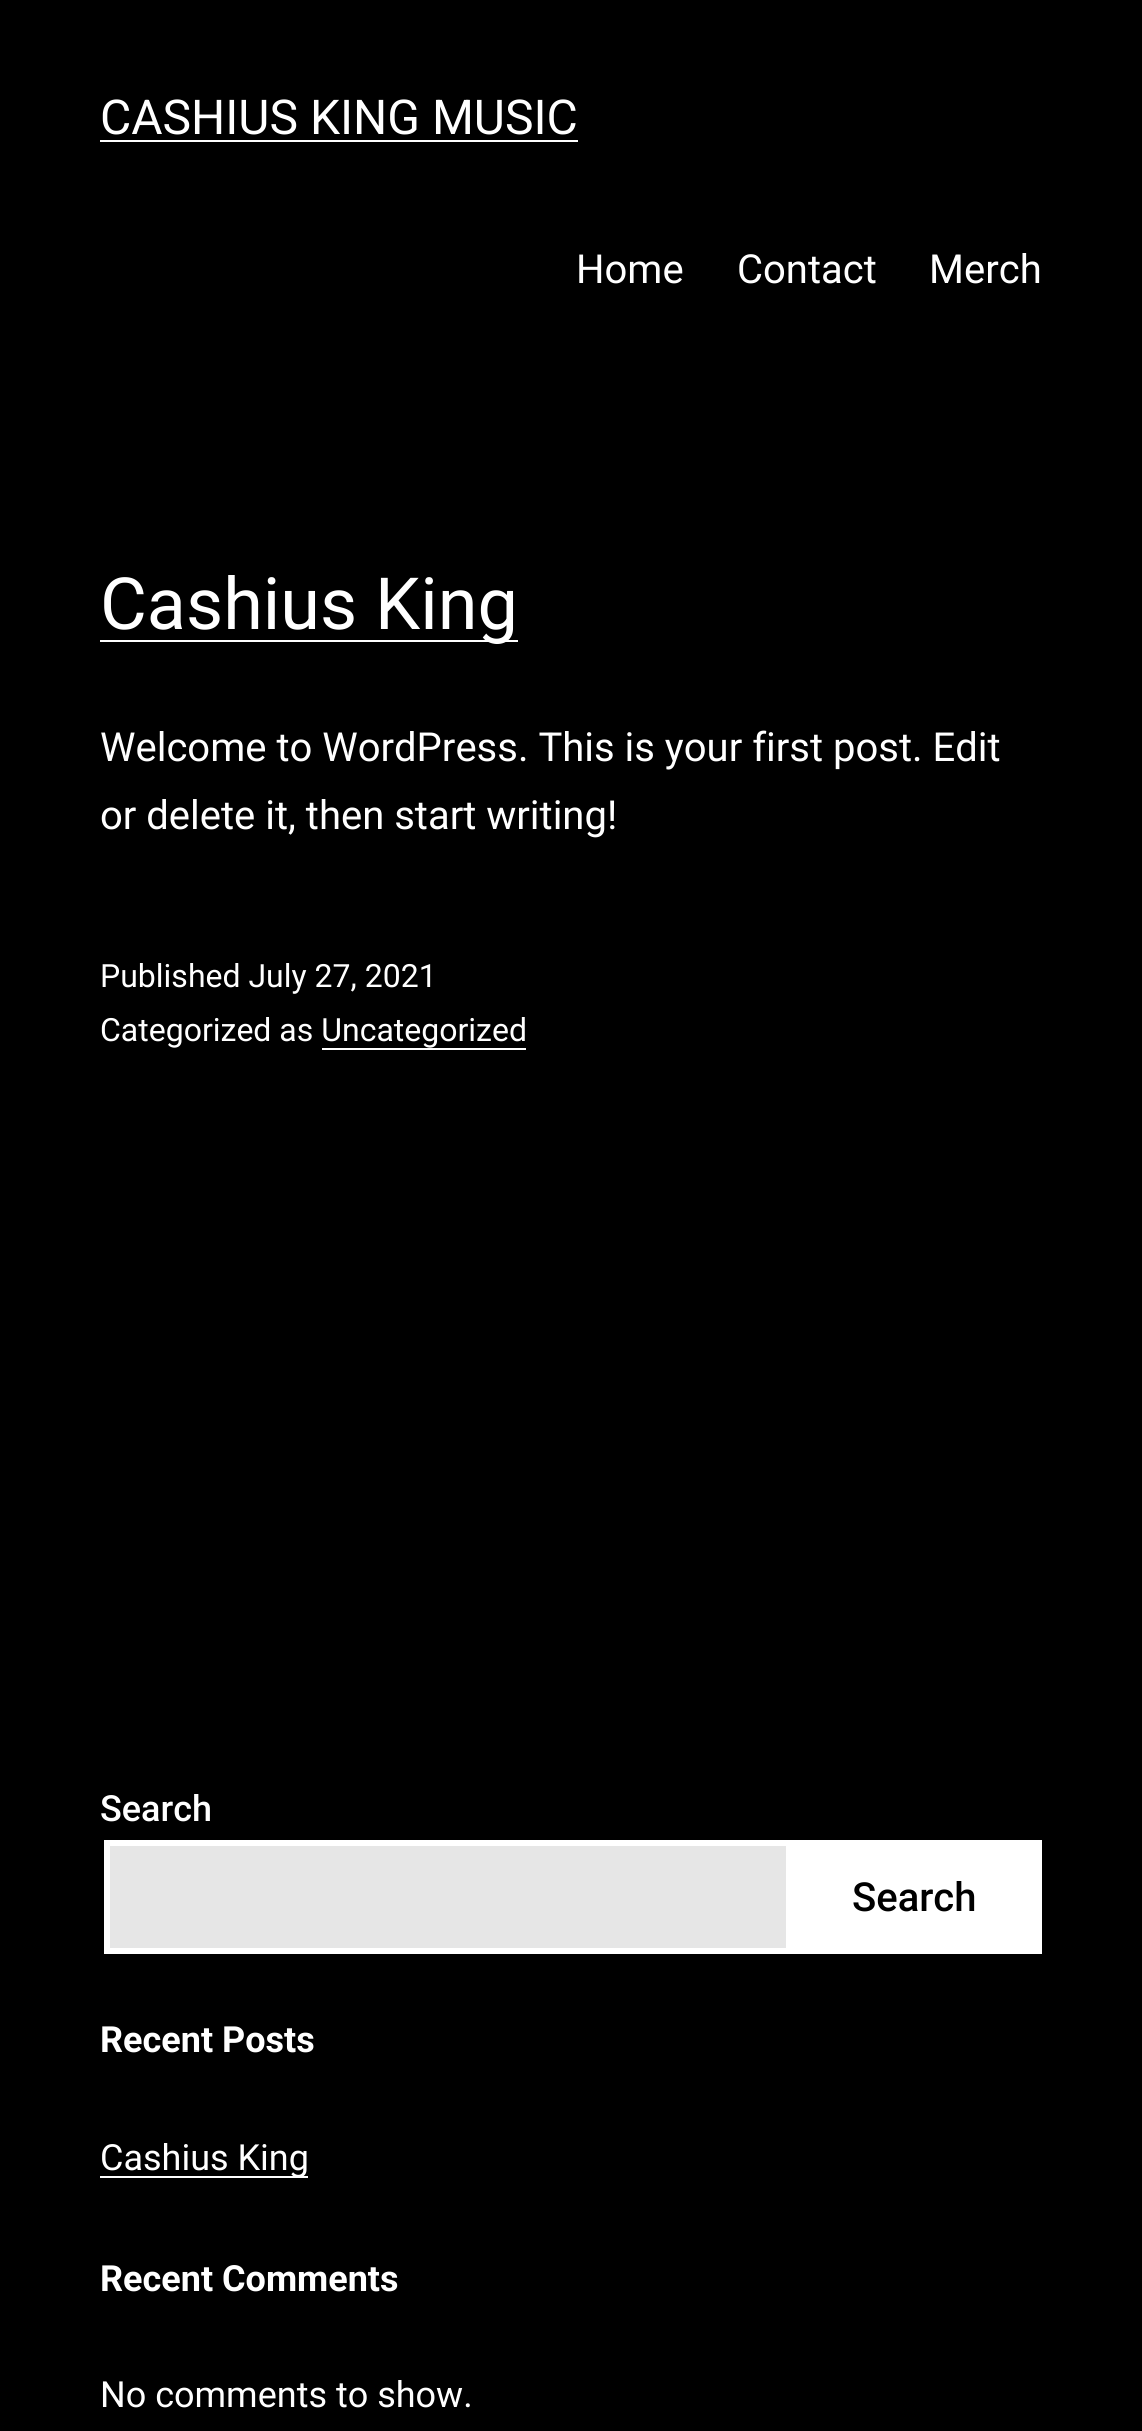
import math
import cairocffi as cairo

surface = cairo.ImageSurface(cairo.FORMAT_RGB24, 1142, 2431)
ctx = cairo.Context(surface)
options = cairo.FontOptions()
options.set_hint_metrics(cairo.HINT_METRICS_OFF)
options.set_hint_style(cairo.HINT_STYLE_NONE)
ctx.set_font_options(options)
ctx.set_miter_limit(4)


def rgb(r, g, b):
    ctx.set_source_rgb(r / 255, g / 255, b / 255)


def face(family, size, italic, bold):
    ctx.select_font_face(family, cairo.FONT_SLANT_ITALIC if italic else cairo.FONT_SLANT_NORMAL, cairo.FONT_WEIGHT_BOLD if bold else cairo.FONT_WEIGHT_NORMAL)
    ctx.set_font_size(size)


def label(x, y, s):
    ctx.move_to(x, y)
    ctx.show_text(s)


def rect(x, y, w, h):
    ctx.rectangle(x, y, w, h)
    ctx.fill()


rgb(0, 0, 0)
ctx.paint()
face('Roboto', 48, 0, 0)
rgb(255, 255, 255)
label(100, 134, 'CASHIUS KING MUSIC')
rect(100, 140, 478, 2)
face('Roboto', 40, 0, 0)
label(576, 283, 'Home')
label(737, 283, 'Contact')
label(929, 283, 'Merch')
rect(100, 640, 418, 2)
face('Roboto', 72, 0, 0)
label(100, 629, 'Cashius King')
face('Roboto', 40, 0, 0)
label(100, 761, 'Welcome to WordPress. This is your first post. Edit')
label(100, 829, 'or delete it, then start writing!')
face('Roboto', 32, 0, 0)
label(100, 987, 'Published July 27, 2021')
label(100, 1041, 'Categorized as Uncategorized')
rect(322, 1048, 204, 2)
face('Roboto Medium', 36, 0, 0)
label(100, 1821, 'Search')
rgb(230, 230, 230)
ctx.rectangle(107, 1843, 682, 108)
ctx.fill_preserve()
rgb(255, 255, 255)
ctx.set_line_width(6)
ctx.stroke()
rect(792, 1840, 250, 114)
face('Roboto Medium', 40, 0, 0)
rgb(0, 0, 0)
label(852, 1911, 'Search')
face('Roboto', 36, 0, 1)
rgb(255, 255, 255)
label(100, 2052, 'Recent Posts')
rect(100, 2176, 208, 2)
face('Roboto', 36, 0, 0)
label(100, 2170, 'Cashius King')
face('Roboto', 36, 0, 1)
label(100, 2291, 'Recent Comments')
face('Roboto', 36, 0, 0)
label(100, 2407, 'No comments to show.')
surface.write_to_png('render.png')
